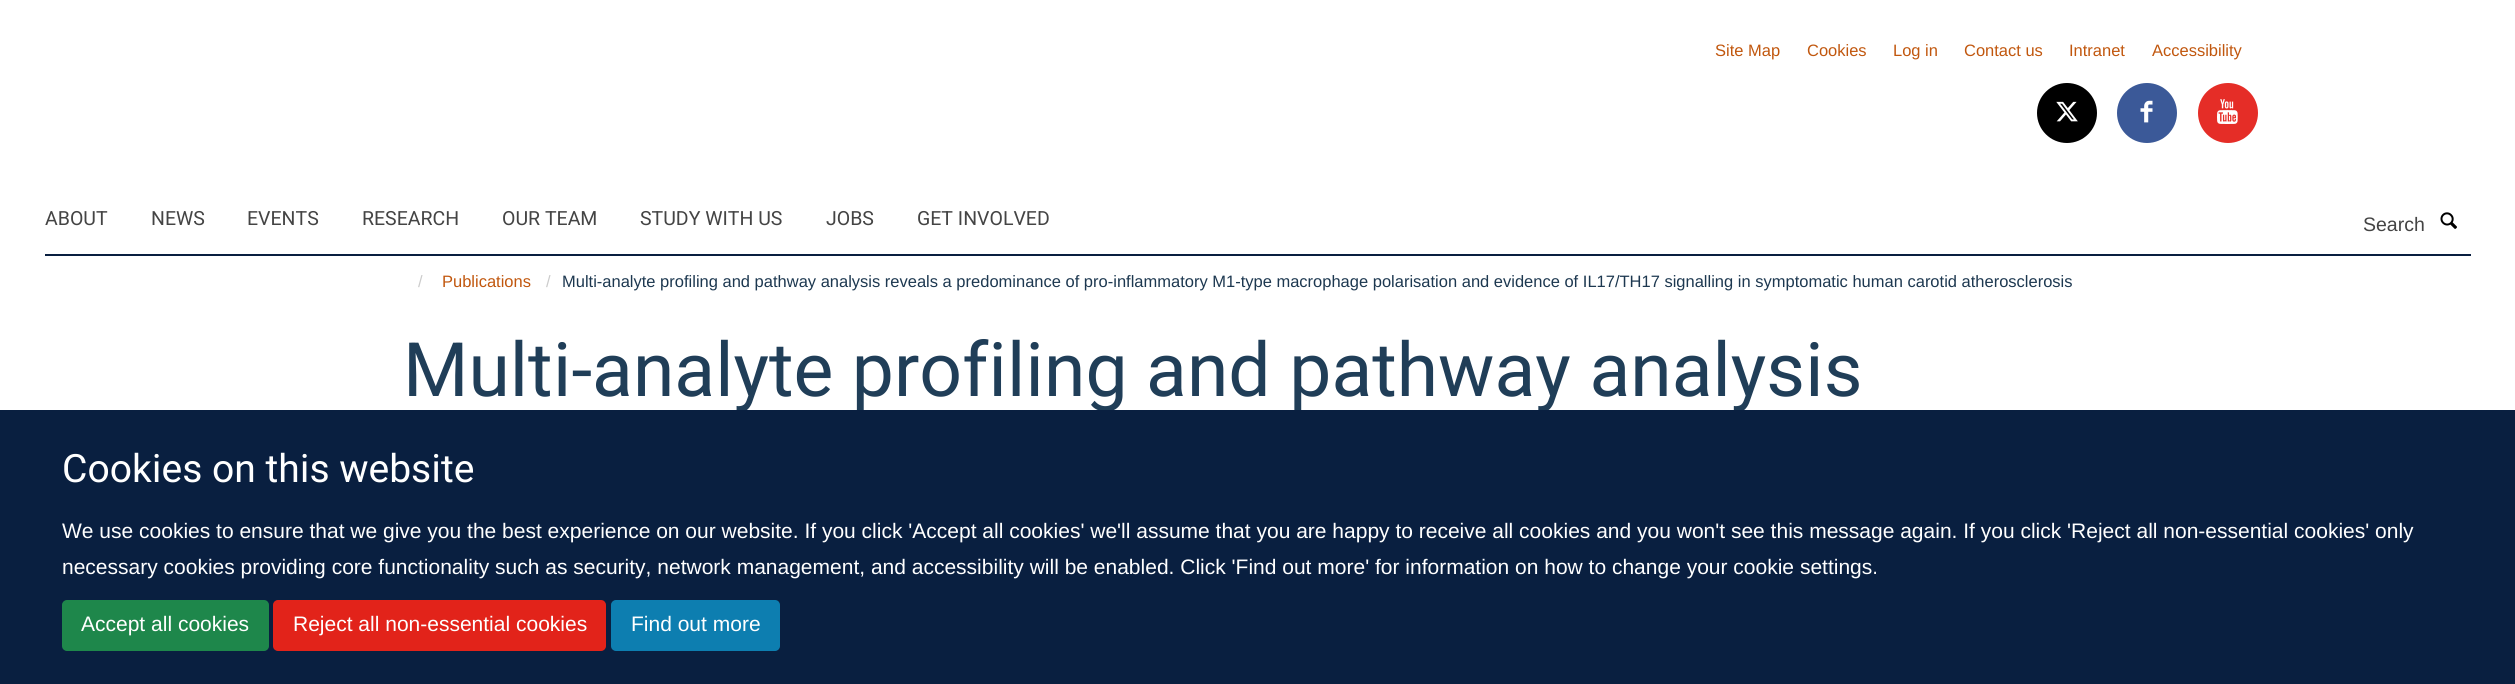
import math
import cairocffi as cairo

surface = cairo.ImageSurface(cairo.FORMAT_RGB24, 2515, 684)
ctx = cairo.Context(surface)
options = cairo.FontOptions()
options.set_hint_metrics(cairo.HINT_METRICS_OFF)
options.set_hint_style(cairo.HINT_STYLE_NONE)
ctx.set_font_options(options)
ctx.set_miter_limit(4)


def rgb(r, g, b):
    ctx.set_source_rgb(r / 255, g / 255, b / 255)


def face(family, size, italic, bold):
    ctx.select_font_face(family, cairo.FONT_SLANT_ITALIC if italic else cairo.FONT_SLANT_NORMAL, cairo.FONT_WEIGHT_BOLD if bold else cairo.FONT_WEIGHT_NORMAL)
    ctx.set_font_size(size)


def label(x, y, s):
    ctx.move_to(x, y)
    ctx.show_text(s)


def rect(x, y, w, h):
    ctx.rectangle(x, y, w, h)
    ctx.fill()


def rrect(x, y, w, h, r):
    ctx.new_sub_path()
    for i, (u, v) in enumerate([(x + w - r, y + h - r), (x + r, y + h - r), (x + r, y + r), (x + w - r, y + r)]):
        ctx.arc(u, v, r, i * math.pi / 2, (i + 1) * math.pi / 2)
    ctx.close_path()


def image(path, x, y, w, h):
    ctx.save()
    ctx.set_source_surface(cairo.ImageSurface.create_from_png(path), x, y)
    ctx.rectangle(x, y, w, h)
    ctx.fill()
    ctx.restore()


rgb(255, 255, 255)
ctx.paint()
face('Liberation Sans', 16.5, 0, 0)
rgb(193, 87, 14)
label(1715, 56, 'Site Map')
label(1807, 56, 'Cookies')
label(1893, 56, 'Log in')
label(1964, 56, 'Contact us')
label(2069, 56, 'Intranet')
label(2152, 56, 'Accessibility')
rgb(0, 0, 0)
ctx.new_path()
ctx.arc(2067, 113, 30, 0, 2 * math.pi)
ctx.fill()
image('image0.png', 2056, 101, 22, 21)
rgb(59, 89, 152)
ctx.arc(2147, 113, 30, 0, 2 * math.pi)
ctx.fill()
image('image1.png', 2140, 100, 13, 23)
rgb(229, 45, 39)
ctx.arc(2228, 113, 30, 0, 2 * math.pi)
ctx.fill()
image('image2.png', 2217, 99, 21, 25)
rgb(9, 31, 64)
rect(45, 254, 2426, 2)
face('Heebo', 19.5, 0, 0)
rgb(68, 68, 68)
label(45, 225, 'ABOUT')
label(151, 225, 'NEWS')
label(247, 225, 'EVENTS')
label(362, 225, 'RESEARCH')
label(502, 225, 'OUR TEAM')
label(640, 225, 'STUDY WITH US')
label(826, 225, 'JOBS')
label(917, 225, 'GET INVOLVED')
face('Liberation Sans', 19.5, 0, 0)
label(2363, 231, 'Search')
image('image3.png', 2440, 212, 17, 17)
face('Liberation Sans', 16.5, 0, 0)
rgb(204, 204, 204)
label(418, 287, '/')
rgb(193, 87, 14)
label(442, 287, 'Publications')
rgb(204, 204, 204)
label(546, 287, '/')
rgb(29, 56, 80)
label(562, 287, 'Multi-analyte profiling and pathway analysis reveals a predominance of pro-inflammatory M1-type macrophage polarisation and evidence of IL17/TH17 signalling in symptomatic human carotid atherosclerosis')
face('Heebo', 75, 0, 0)
rgb(32, 62, 88)
label(403, 396, 'Multi-analyte profiling and pathway analysis')
rgb(9, 31, 64)
rect(0, 410, 2515, 274)
face('Heebo', 39, 0, 0)
rgb(255, 255, 255)
label(62, 482, 'Cookies on this website')
face('Liberation Sans', 21, 0, 0)
label(62, 538, 'We use cookies to ensure that we give you the best experience on our website. If you click \'Accept all cookies\' we\'ll assume that you are happy to receive all cookies and you won\'t see this message again. If you click \'Reject all non-essential cookies\' only')
label(62, 574, 'necessary cookies providing core functionality such as security, network management, and accessibility will be enabled. Click \'Find out more\' for information on how to change your cookie settings.')
rgb(30, 135, 75)
rrect(63, 601, 205, 49, 4)
ctx.fill_preserve()
ctx.stroke()
rgb(255, 255, 255)
label(81, 631, 'Accept all cookies')
rgb(226, 35, 26)
rrect(274, 601, 331, 49, 4)
ctx.fill_preserve()
ctx.stroke()
rgb(255, 255, 255)
label(293, 631, 'Reject all non-essential cookies')
rgb(13, 126, 176)
rrect(612, 601, 167, 49, 4)
ctx.fill_preserve()
ctx.stroke()
rgb(255, 255, 255)
label(631, 631, 'Find out more')
surface.write_to_png('render.png')
